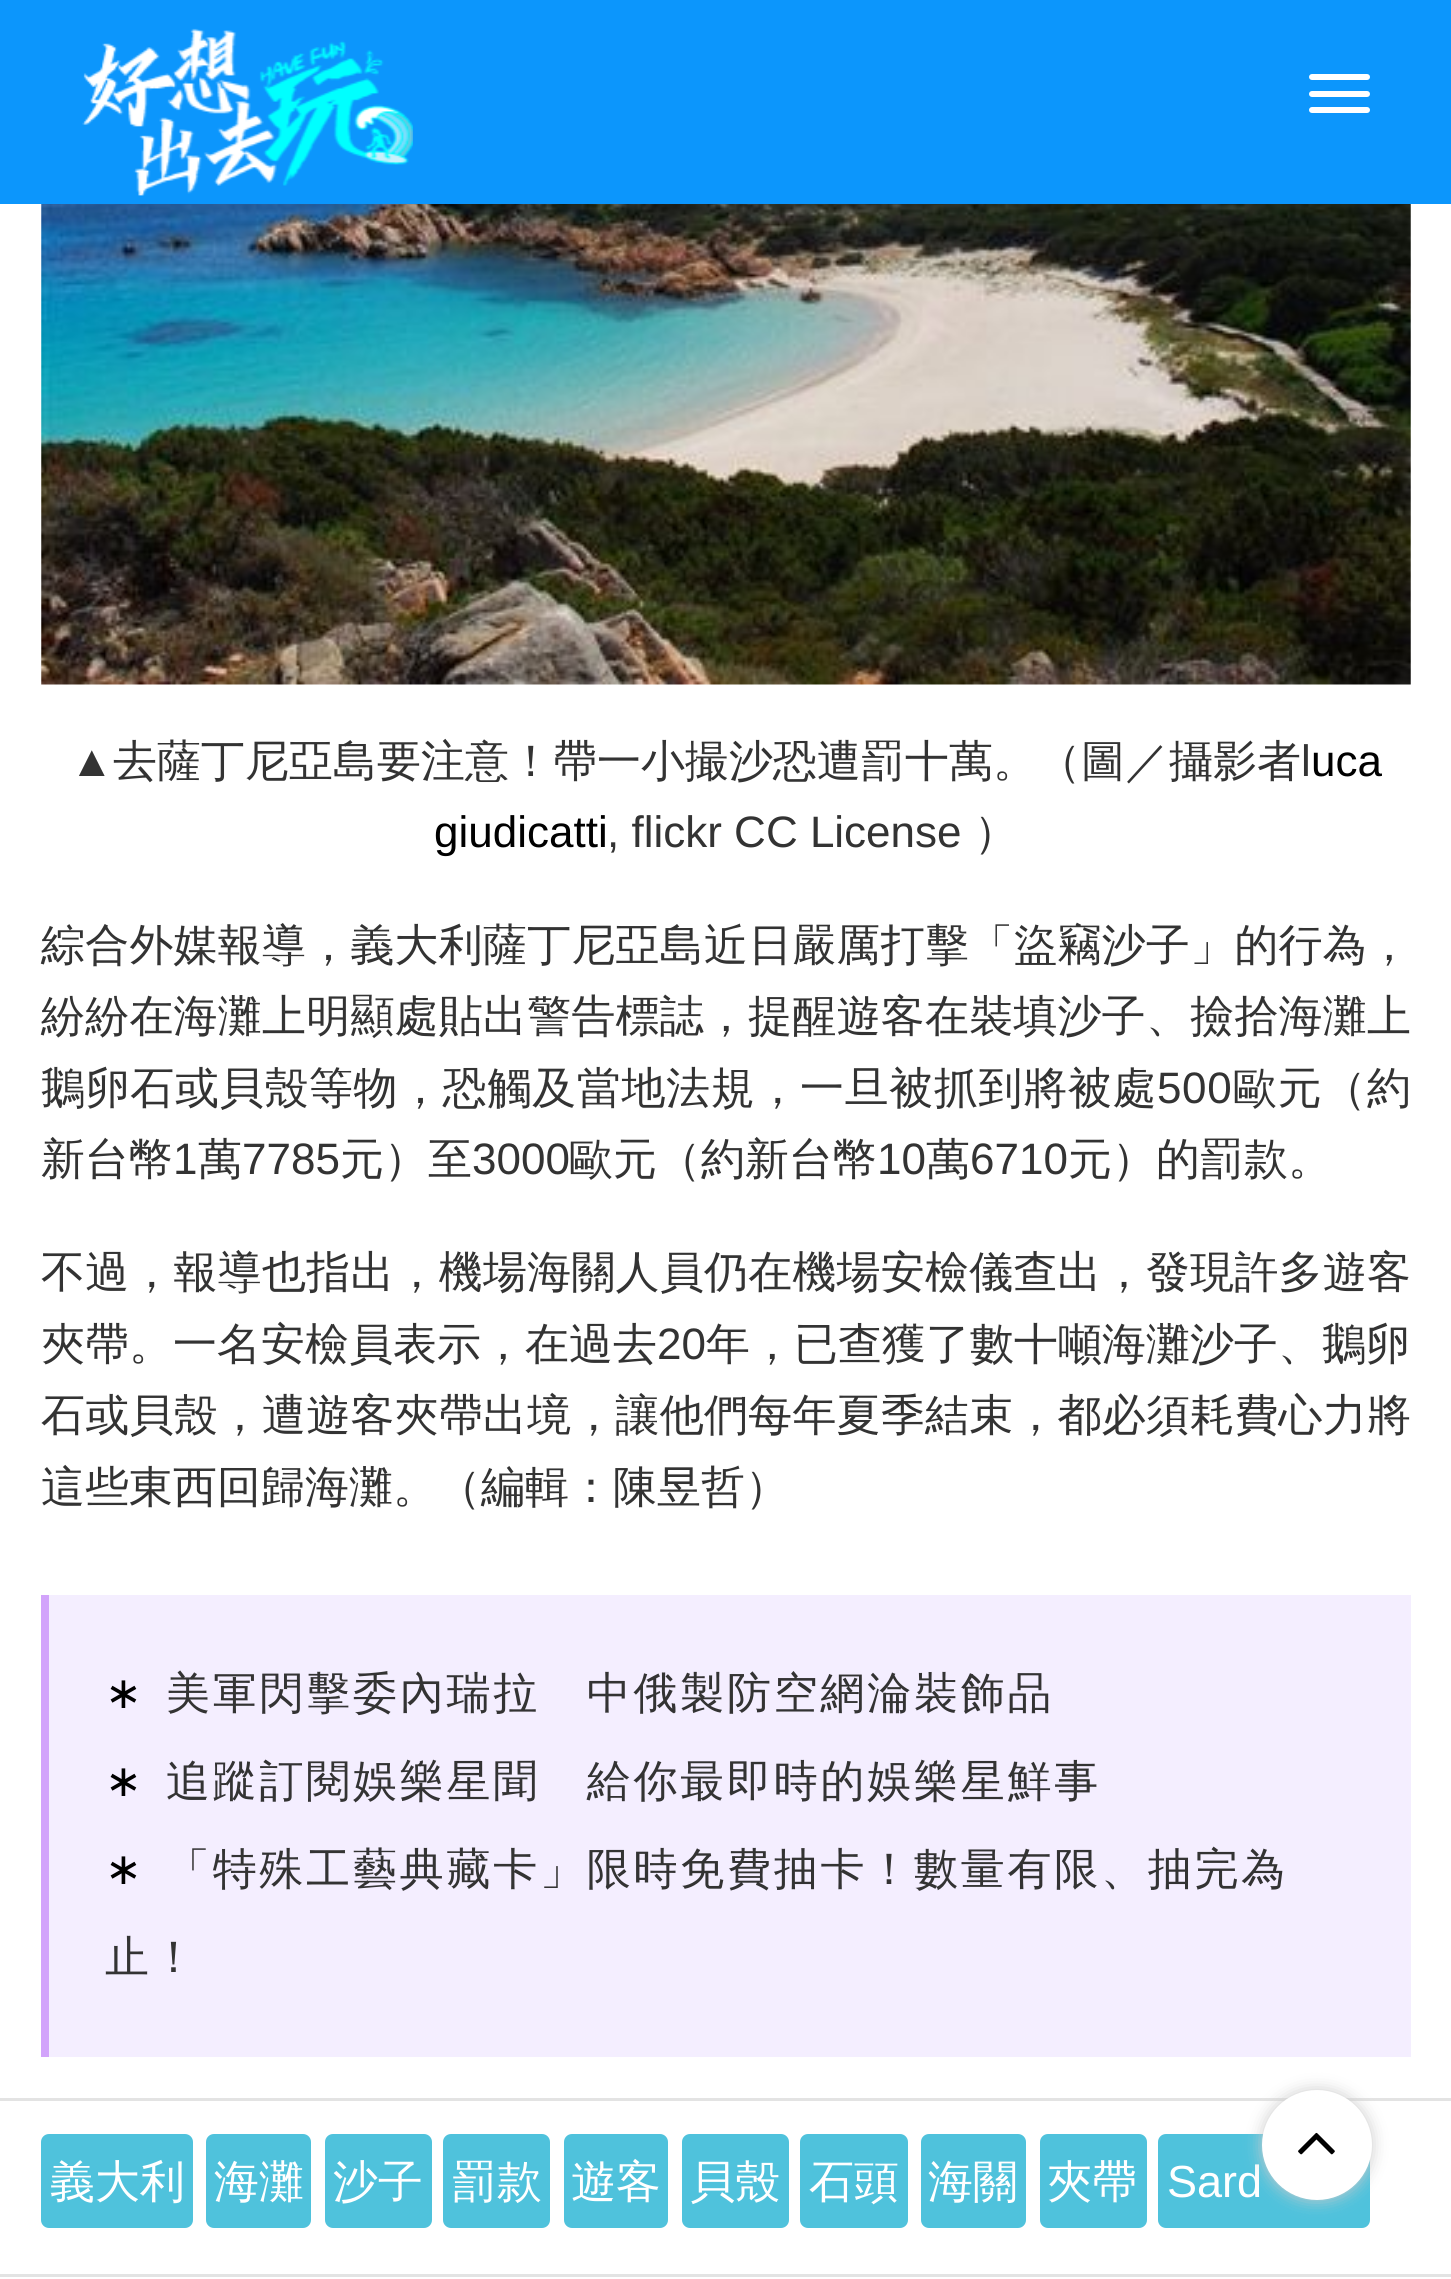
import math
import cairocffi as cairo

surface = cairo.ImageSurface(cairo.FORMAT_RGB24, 1451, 2279)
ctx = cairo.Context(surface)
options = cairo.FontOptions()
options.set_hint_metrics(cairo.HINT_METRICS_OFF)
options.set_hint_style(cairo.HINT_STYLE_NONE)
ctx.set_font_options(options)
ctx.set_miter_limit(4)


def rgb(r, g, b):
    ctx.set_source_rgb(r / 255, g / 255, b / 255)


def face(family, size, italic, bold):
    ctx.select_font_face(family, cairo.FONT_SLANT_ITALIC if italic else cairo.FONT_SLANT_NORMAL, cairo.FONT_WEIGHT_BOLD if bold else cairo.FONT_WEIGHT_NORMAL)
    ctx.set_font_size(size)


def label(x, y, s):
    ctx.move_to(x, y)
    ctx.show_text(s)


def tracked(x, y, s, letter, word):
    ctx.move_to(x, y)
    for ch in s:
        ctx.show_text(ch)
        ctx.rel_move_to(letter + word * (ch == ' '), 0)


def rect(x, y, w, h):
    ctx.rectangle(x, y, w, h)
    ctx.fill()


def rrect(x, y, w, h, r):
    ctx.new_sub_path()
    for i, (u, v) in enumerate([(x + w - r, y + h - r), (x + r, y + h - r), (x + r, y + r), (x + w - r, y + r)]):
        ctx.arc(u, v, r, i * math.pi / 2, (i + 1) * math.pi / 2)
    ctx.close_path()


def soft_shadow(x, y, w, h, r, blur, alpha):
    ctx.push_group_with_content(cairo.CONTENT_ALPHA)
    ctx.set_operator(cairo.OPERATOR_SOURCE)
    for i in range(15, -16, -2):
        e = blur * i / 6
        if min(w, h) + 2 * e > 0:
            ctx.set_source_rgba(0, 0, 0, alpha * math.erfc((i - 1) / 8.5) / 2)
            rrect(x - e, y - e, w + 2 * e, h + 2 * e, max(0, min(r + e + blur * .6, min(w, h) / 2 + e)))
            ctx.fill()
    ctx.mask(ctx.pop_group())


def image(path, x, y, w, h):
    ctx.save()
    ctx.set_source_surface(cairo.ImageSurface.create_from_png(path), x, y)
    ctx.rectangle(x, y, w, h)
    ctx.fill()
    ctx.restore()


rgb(255, 255, 255)
ctx.paint()
rgb(12, 150, 252)
rect(0, 0, 1451, 204)
image('image0.png', 82, 28, 331, 168)
rgb(255, 255, 255)
rrect(1309, 74, 61, 6, 3)
ctx.fill()
rrect(1309, 91, 61, 6, 3)
ctx.fill()
rrect(1309, 107, 61, 6, 3)
ctx.fill()
image('image1.png', 41, 204, 1370, 481)
face('Liberation Sans', 44, 0, 0)
rgb(51, 51, 51)
label(70, 776, '▲')
face('WenQuanYi Zen Hei Medium', 44, 0, 0)
label(113, 776, '去薩丁尼亞島要注意！帶一小撮沙恐遭罰十萬。（圖／攝影者')
face('Liberation Sans', 44, 0, 0)
label(1301, 776, 'l')
rgb(0, 0, 0)
label(1311, 776, 'uca')
label(434, 847, 'giudicatti')
rgb(51, 51, 51)
label(607, 847, ', flickr CC License')
face('WenQuanYi Zen Hei Medium', 44, 0, 0)
label(974, 847, '）')
tracked(41, 960, '綜合外媒報導，義大利薩丁尼亞島近日嚴厲打擊「盜竊沙子」的行為，', 0.2, 0)
tracked(41, 1031, '紛紛在海灘上明顯處貼出警告標誌，提醒遊客在裝填沙子、撿拾海灘上', 0.2, 0)
tracked(41, 1103, '鵝卵石或貝殼等物，恐觸及當地法規，一旦被抓到將被處', 0.65, 0)
face('Liberation Sans', 44, 0, 0)
tracked(1157, 1103, '500', 0.65, 0)
face('WenQuanYi Zen Hei Medium', 44, 0, 0)
tracked(1233, 1103, '歐元（約', 0.65, 0)
label(41, 1174, '新台幣')
face('Liberation Sans', 44, 0, 0)
label(173, 1174, '1')
face('WenQuanYi Zen Hei Medium', 44, 0, 0)
label(198, 1174, '萬')
face('Liberation Sans', 44, 0, 0)
label(242, 1174, '7785')
face('WenQuanYi Zen Hei Medium', 44, 0, 0)
label(340, 1174, '元）至')
face('Liberation Sans', 44, 0, 0)
label(472, 1174, '3000')
face('WenQuanYi Zen Hei Medium', 44, 0, 0)
label(569, 1174, '歐元（約新台幣')
face('Liberation Sans', 44, 0, 0)
label(877, 1174, '10')
face('WenQuanYi Zen Hei Medium', 44, 0, 0)
label(926, 1174, '萬')
face('Liberation Sans', 44, 0, 0)
label(970, 1174, '6710')
face('WenQuanYi Zen Hei Medium', 44, 0, 0)
label(1068, 1174, '元）的罰款。')
tracked(41, 1287, '不過，報導也指出，機場海關人員仍在機場安檢儀查出，發現許多遊客', 0.2, 0)
label(41, 1359, '夾帶。一名安檢員表示，在過去')
face('Liberation Sans', 44, 0, 0)
label(657, 1359, '20')
face('WenQuanYi Zen Hei Medium', 44, 0, 0)
label(706, 1359, '年，已查獲了數十噸海灘沙子、鵝卵')
tracked(41, 1430, '石或貝殼，遭遊客夾帶出境，讓他們每年夏季結束，都必須耗費心力將', 0.2, 0)
label(41, 1502, '這些東西回歸海灘。（編輯：陳昱哲）')
rgb(244, 238, 255)
rect(49, 1595, 1362, 462)
rgb(210, 163, 251)
rect(41, 1595, 8, 462)
face('DejaVu Sans', 44, 0, 0)
rgb(0, 0, 0)
tracked(105, 1708, '∗', 2.75, 0)
face('WenQuanYi Zen Hei Medium', 44, 0, 0)
rgb(51, 51, 51)
tracked(166, 1708, '美軍閃擊委內瑞拉　中俄製防空網淪裝飾品', 2.75, 0)
face('DejaVu Sans', 44, 0, 0)
rgb(0, 0, 0)
tracked(105, 1796, '∗', 2.75, 0)
face('WenQuanYi Zen Hei Medium', 44, 0, 0)
rgb(51, 51, 51)
tracked(166, 1796, '追蹤訂閱娛樂星聞　給你最即時的娛樂星鮮事', 2.75, 0)
face('DejaVu Sans', 44, 0, 0)
rgb(0, 0, 0)
tracked(105, 1884, '∗', 2.75, 0)
face('WenQuanYi Zen Hei Medium', 44, 0, 0)
rgb(51, 51, 51)
tracked(166, 1884, '「特殊工藝典藏卡」限時免費抽卡！數量有限、抽完為', 2.75, 0)
tracked(105, 1972, '止！', 2.75, 0)
rgb(227, 227, 227)
rect(0, 2098, 1451, 3)
rect(0, 2274, 1451, 3)
rgb(79, 194, 220)
rrect(41, 2134, 152, 94, 8)
ctx.fill()
face('WenQuanYi Zen Hei Medium', 45, 0, 0)
rgb(255, 255, 255)
label(50, 2197, '義大利')
rgb(79, 194, 220)
rrect(206, 2134, 105, 94, 8)
ctx.fill()
rgb(255, 255, 255)
label(214, 2197, '海灘')
rgb(79, 194, 220)
rrect(325, 2134, 107, 94, 8)
ctx.fill()
rgb(255, 255, 255)
label(333, 2197, '沙子')
rgb(79, 194, 220)
rrect(443, 2134, 107, 94, 8)
ctx.fill()
rgb(255, 255, 255)
label(452, 2197, '罰款')
rgb(79, 194, 220)
rrect(564, 2134, 104, 94, 8)
ctx.fill()
rgb(255, 255, 255)
label(571, 2197, '遊客')
rgb(79, 194, 220)
rrect(682, 2134, 107, 94, 8)
ctx.fill()
rgb(255, 255, 255)
label(690, 2197, '貝殼')
rgb(79, 194, 220)
rrect(800, 2134, 108, 94, 8)
ctx.fill()
rgb(255, 255, 255)
label(809, 2197, '石頭')
rgb(79, 194, 220)
rrect(921, 2134, 105, 94, 8)
ctx.fill()
rgb(255, 255, 255)
label(928, 2197, '海關')
rgb(79, 194, 220)
rrect(1040, 2134, 107, 94, 8)
ctx.fill()
rgb(255, 255, 255)
label(1047, 2197, '夾帶')
rgb(79, 194, 220)
rrect(1158, 2134, 212, 94, 8)
ctx.fill()
face('Liberation Sans', 45, 0, 0)
rgb(255, 255, 255)
label(1167, 2197, 'Sard')
rgb(204, 204, 204)
soft_shadow(1262, 2090, 110, 110, 55, 8, 1)
rgb(255, 255, 255)
ctx.arc(1317, 2145, 55, 0, 2 * math.pi)
ctx.fill()
image('image2.png', 1298, 2132, 37, 23)
surface.write_to_png('render.png')
